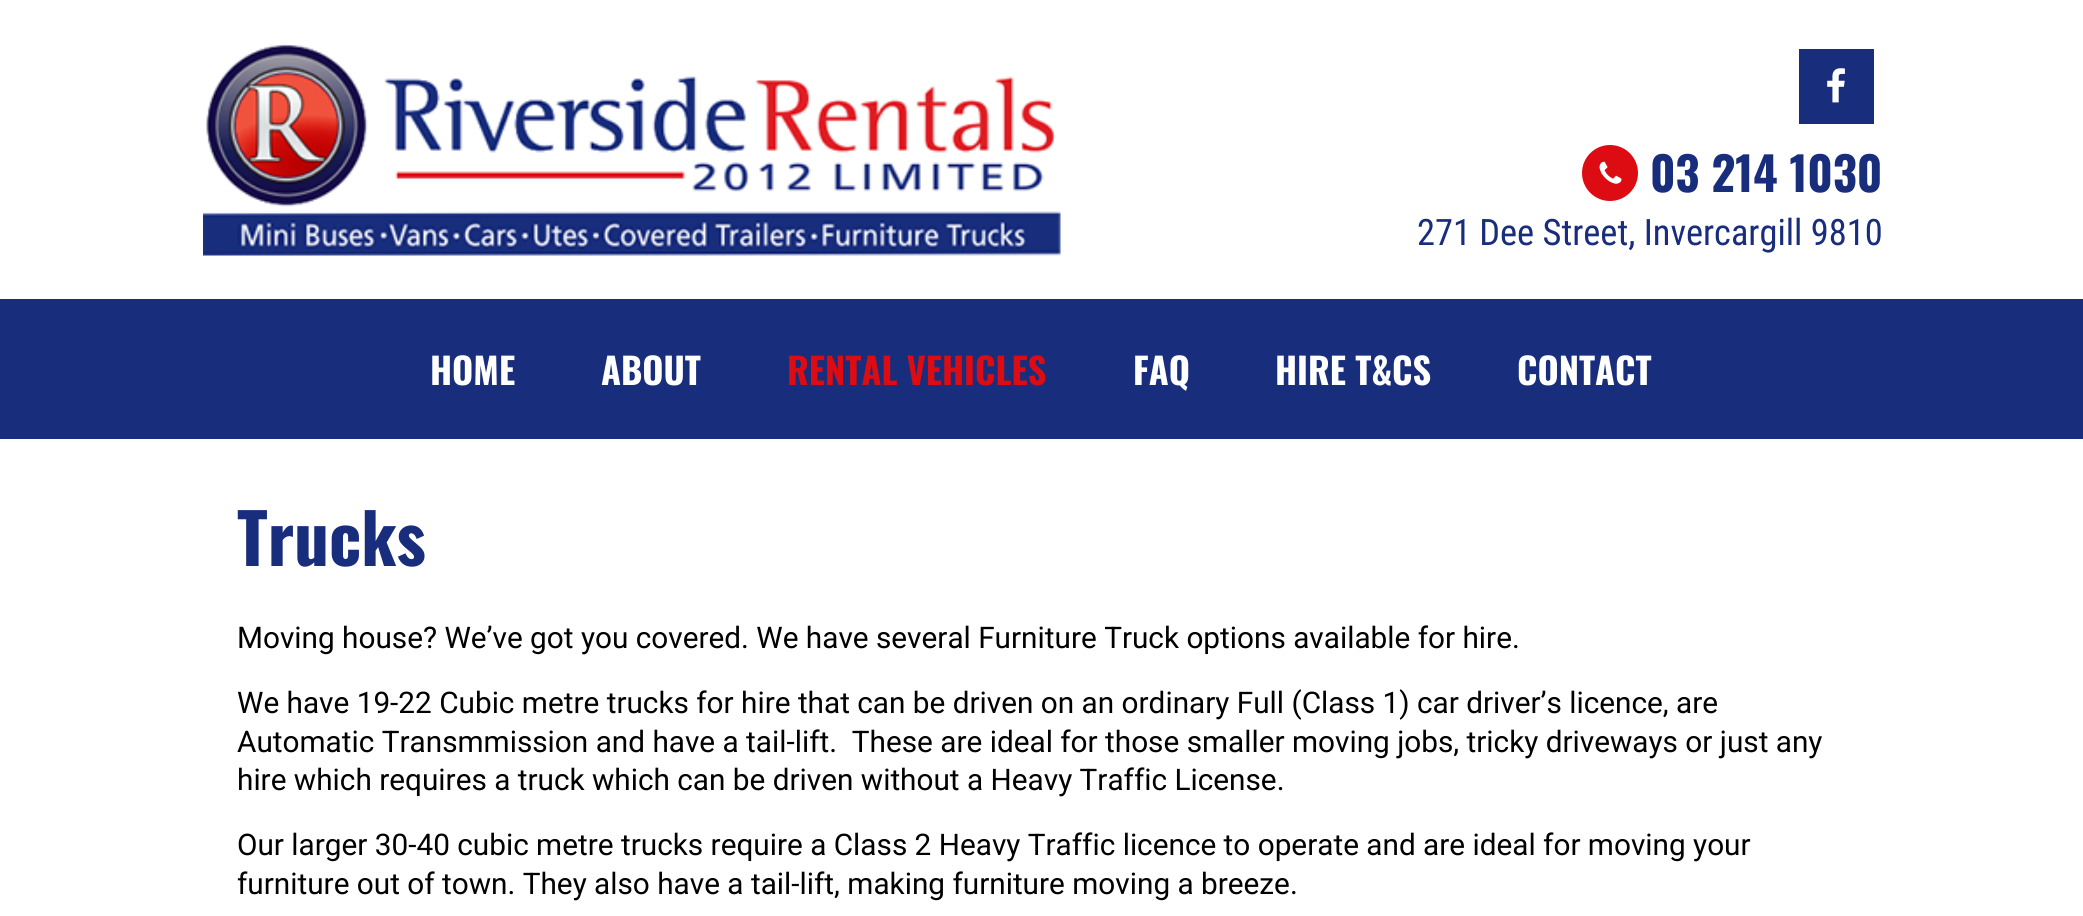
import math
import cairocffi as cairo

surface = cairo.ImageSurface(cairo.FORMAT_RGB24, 2083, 916)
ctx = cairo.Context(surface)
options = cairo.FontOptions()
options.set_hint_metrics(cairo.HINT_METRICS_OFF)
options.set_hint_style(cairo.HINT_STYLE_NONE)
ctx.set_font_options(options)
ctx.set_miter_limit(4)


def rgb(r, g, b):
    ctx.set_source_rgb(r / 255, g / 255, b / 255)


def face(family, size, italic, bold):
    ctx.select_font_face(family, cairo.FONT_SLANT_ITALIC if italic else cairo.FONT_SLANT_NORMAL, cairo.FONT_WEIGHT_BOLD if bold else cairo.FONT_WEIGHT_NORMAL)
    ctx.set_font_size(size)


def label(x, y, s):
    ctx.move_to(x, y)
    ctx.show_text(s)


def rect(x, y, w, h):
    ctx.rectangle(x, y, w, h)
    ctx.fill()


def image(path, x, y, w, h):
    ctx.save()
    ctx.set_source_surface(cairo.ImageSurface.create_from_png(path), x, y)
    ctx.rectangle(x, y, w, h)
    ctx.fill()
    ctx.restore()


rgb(255, 255, 255)
ctx.paint()
image('image0.png', 203, 44, 858, 212)
rgb(24, 45, 124)
rect(1799, 49, 75, 75)
image('image1.png', 1827, 68, 18, 35)
rgb(221, 12, 19)
ctx.arc(1610, 173, 28, 0, 2 * math.pi)
ctx.fill()
image('image2.png', 1599, 161, 23, 23)
face('Oswald', 46.5, 0, 1)
rgb(24, 45, 124)
label(1650, 192, '03 214 1030')
face('Roboto Condensed', 36.4, 0, 0)
label(1417, 245, '271 Dee Street, Invercargill 9810')
rect(0, 299, 2083, 140)
face('Oswald', 36.25, 0, 1)
rgb(255, 255, 255)
label(430, 385, 'HOME')
label(601, 385, 'ABOUT')
rgb(221, 12, 19)
label(787, 385, 'RENTAL VEHICLES')
rgb(255, 255, 255)
label(1133, 385, 'FAQ')
label(1275, 385, 'HIRE T&CS')
label(1517, 385, 'CONTACT')
face('Oswald', 69, 0, 1)
rgb(24, 45, 124)
label(237, 566, 'Trucks')
face('Roboto', 29.75, 0, 0)
rgb(0, 0, 0)
label(237, 648, 'Moving house? We’ve got you covered. We have several Furniture Truck options available for hire.')
label(237, 713, 'We have 19-22 Cubic metre trucks for hire that can be driven on an ordinary Full (Class 1) car driver’s licence, are')
label(237, 752, 'Automatic Transmmission and have a tail-lift.  These are ideal for those smaller moving jobs, tricky driveways or just any')
label(237, 790, 'hire which requires a truck which can be driven without a Heavy Traffic License.')
label(237, 855, 'Our larger 30-40 cubic metre trucks require a Class 2 Heavy Traffic licence to operate and are ideal for moving your')
label(237, 894, 'furniture out of town. They also have a tail-lift, making furniture moving a breeze.')
surface.write_to_png('render.png')
